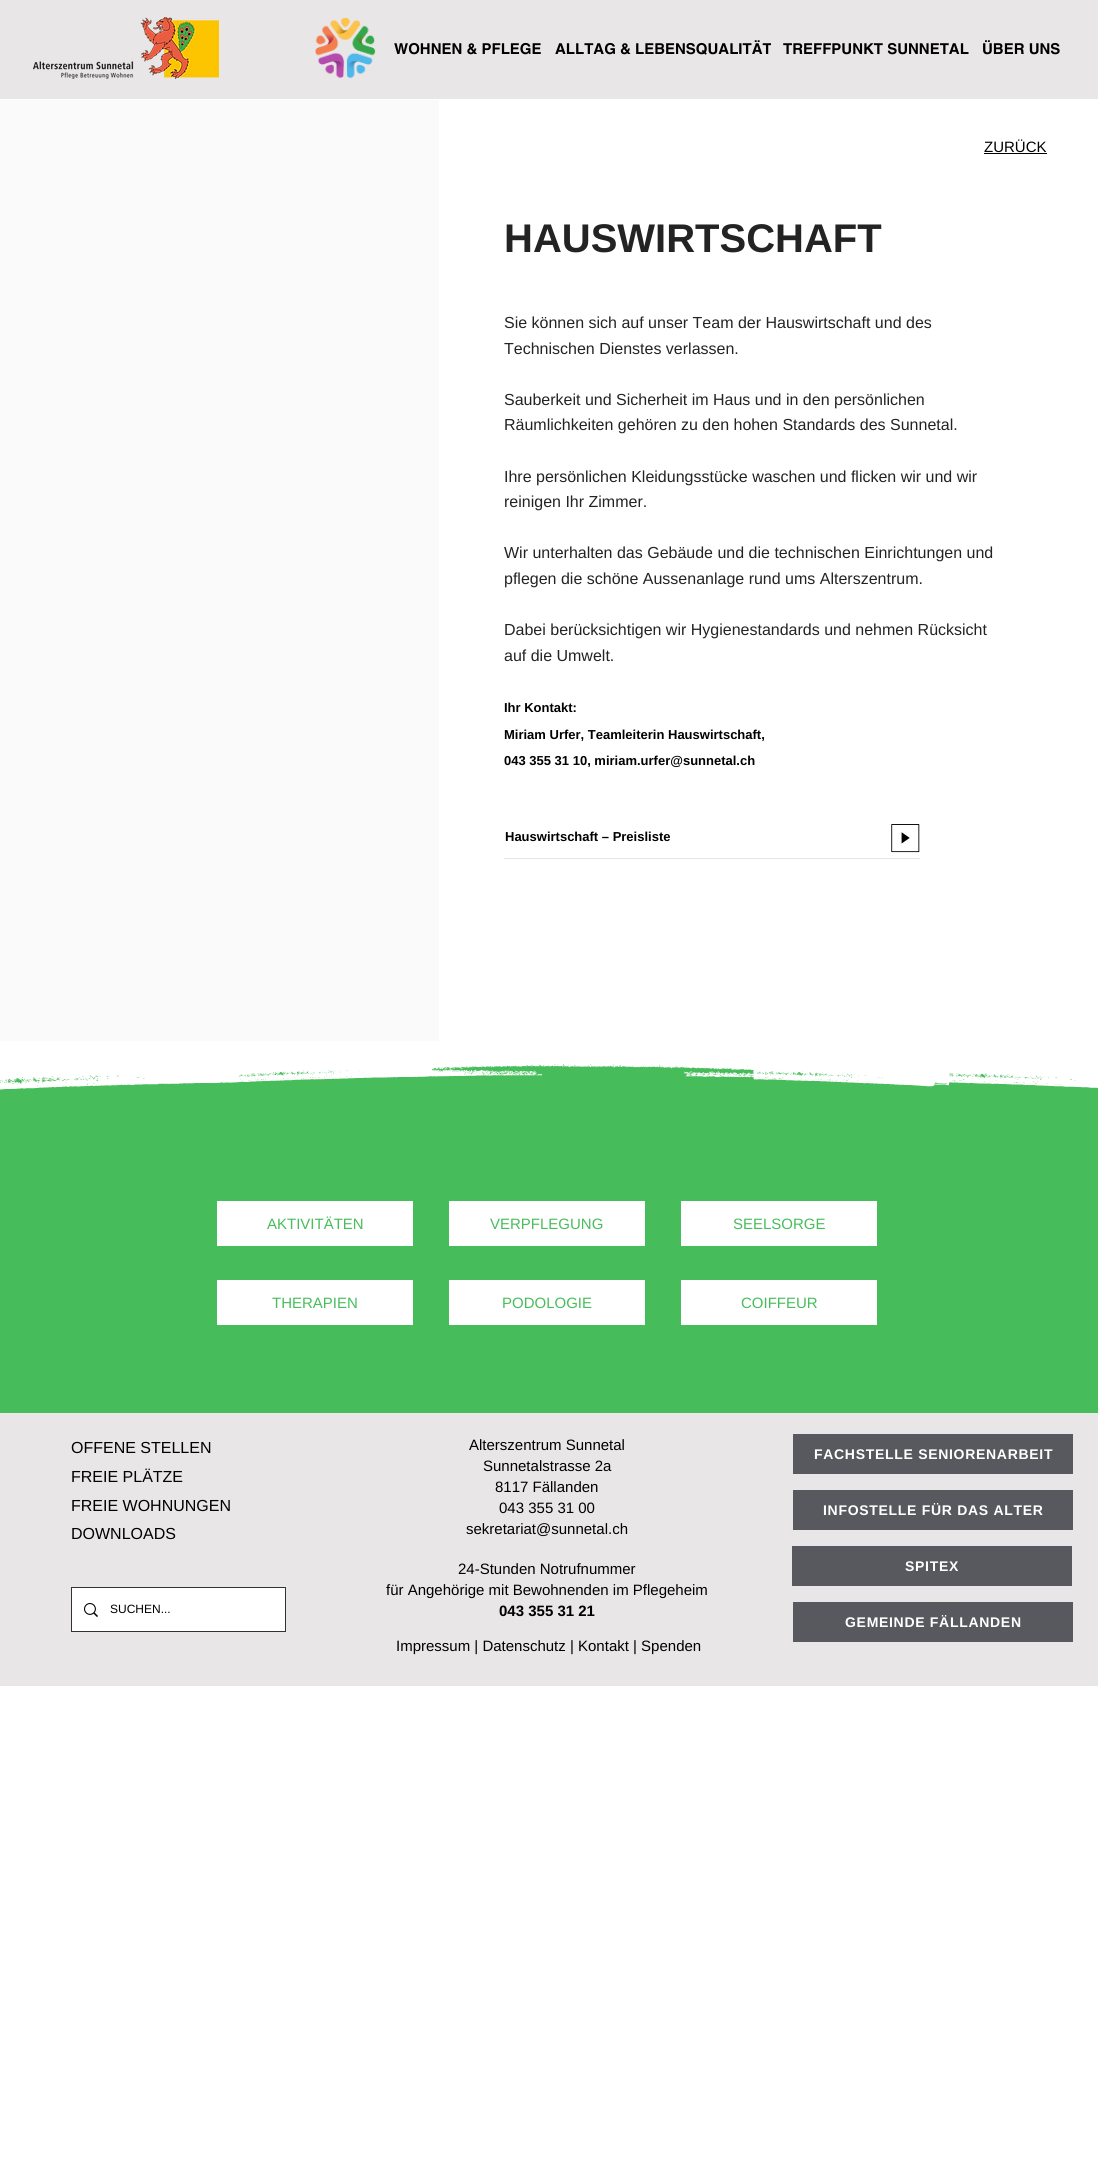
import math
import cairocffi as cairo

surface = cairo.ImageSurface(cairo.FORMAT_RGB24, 1098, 2171)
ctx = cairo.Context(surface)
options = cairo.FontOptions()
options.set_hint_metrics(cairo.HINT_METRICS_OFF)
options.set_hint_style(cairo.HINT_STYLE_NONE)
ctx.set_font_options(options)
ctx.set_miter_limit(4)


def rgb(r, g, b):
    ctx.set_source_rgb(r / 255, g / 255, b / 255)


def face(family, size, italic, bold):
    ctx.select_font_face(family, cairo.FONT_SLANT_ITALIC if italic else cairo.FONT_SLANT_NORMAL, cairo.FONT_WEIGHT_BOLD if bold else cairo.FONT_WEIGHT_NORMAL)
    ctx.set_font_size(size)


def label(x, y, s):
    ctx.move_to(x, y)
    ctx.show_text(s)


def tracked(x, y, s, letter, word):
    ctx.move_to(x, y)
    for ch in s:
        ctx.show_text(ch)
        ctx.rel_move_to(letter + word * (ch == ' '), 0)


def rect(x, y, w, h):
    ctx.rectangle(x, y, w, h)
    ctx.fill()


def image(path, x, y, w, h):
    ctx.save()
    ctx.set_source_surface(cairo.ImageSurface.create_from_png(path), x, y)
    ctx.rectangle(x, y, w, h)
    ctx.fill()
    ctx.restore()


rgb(255, 255, 255)
ctx.paint()
rgb(232, 230, 230)
rect(0, 0, 1098, 99)
image('image0.png', 33, 17, 186, 62)
image('image1.png', 315, 17, 61, 62)
face('helvetica', 15, 0, 1)
rgb(0, 0, 0)
label(394, 54, 'WOHNEN & PFLEGE')
label(555, 54, 'ALLTAG & LEBENSQUALITÄT')
label(783, 54, 'TREFFPUNKT SUNNETAL')
label(982, 54, 'ÜBER UNS')
rgb(250, 250, 250)
rect(0, 100, 439, 941)
face('Liberation Sans', 15, 0, 0)
rgb(0, 0, 0)
label(984, 152, 'ZURÜCK')
rect(984, 153, 63, 1)
face('Liberation Sans', 40, 0, 1)
rgb(36, 35, 35)
label(504, 252, 'HAUSWIRTSCHAFT')
face('Liberation Sans', 16, 0, 0)
label(504, 328, 'Sie können sich auf unser Team der Hauswirtschaft und des')
label(504, 354, 'Technischen Dienstes verlassen.')
label(504, 405, 'Sauberkeit und Sicherheit im Haus und in den persönlichen')
label(504, 430, 'Räumlichkeiten gehören zu den hohen Standards des Sunnetal.')
label(504, 482, 'Ihre persönlichen Kleidungsstücke waschen und flicken wir und wir')
label(504, 507, 'reinigen Ihr Zimmer.')
label(504, 558, 'Wir unterhalten das Gebäude und die technischen Einrichtungen und')
label(504, 584, 'pflegen die schöne Aussenanlage rund ums Alterszentrum.')
label(504, 635, 'Dabei berücksichtigen wir Hygienestandards und nehmen Rücksicht')
label(504, 661, 'auf die Umwelt.')
face('Liberation Sans', 13, 0, 1)
rgb(0, 0, 0)
label(504, 712, 'Ihr Kontakt:')
label(504, 739, 'Miriam Urfer, Teamleiterin Hauswirtschaft,')
label(504, 765, '043 355 31 10, miriam.urfer@sunnetal.ch')
label(505, 841, 'Hauswirtschaft – Preisliste')
image('image2.png', 891, 824, 29, 29)
rgb(232, 230, 230)
rect(504, 858, 416, 1)
rgb(71, 188, 91)
rect(0, 1064, 1098, 349)
image('image3.png', 0, 1042, 1098, 48)
rgb(255, 255, 255)
rect(217, 1201, 196, 45)
face('Liberation Sans', 15, 0, 0)
rgb(71, 189, 91)
label(267, 1229, 'AKTIVITÄTEN')
rgb(255, 255, 255)
rect(449, 1201, 196, 45)
rgb(71, 189, 91)
label(490, 1229, 'VERPFLEGUNG')
rgb(255, 255, 255)
rect(681, 1201, 196, 45)
rgb(71, 189, 91)
label(733, 1229, 'SEELSORGE')
rgb(255, 255, 255)
rect(217, 1280, 196, 45)
rgb(71, 189, 91)
label(272, 1308, 'THERAPIEN')
rgb(255, 255, 255)
rect(449, 1280, 196, 45)
rgb(71, 189, 91)
label(502, 1308, 'PODOLOGIE')
rgb(255, 255, 255)
rect(681, 1280, 196, 45)
rgb(71, 189, 91)
label(741, 1308, 'COIFFEUR')
rgb(232, 230, 230)
rect(0, 1413, 1098, 273)
face('Liberation Sans', 16, 0, 0)
rgb(0, 0, 0)
label(71, 1453, 'OFFENE STELLEN')
label(71, 1482, 'FREIE PLÄTZE')
label(71, 1511, 'FREIE WOHNUNGEN')
label(71, 1539, 'DOWNLOADS')
ctx.rectangle(71.5, 1587.5, 214, 44)
rgb(50, 50, 50)
ctx.set_line_width(1)
ctx.stroke()
rgb(255, 255, 255)
rect(72, 1588, 213, 43)
image('image4.png', 84, 1603, 14, 14)
face('Liberation Sans', 12, 0, 0)
rgb(0, 0, 0)
label(110, 1613, 'SUCHEN...')
face('Liberation Sans', 15, 0, 0)
label(469, 1450, 'Alterszentrum Sunnetal')
label(483, 1471, 'Sunnetalstrasse 2a')
label(495, 1492, '8117 Fällanden')
label(499, 1513, '043 355 31 00')
label(466, 1534, 'sekretariat@sunnetal.ch')
label(458, 1574, '24-Stunden Notrufnummer')
label(386, 1595, 'für Angehörige mit Bewohnenden im Pflegeheim')
face('Liberation Sans', 15, 0, 1)
label(499, 1616, '043 355 31 21')
face('Liberation Sans', 15, 0, 0)
label(396, 1651, 'Impressum | Datenschutz | Kontakt | Spenden')
rgb(87, 89, 94)
rect(793, 1434, 280, 40)
face('Liberation Sans', 14, 0, 1)
rgb(255, 255, 255)
tracked(814, 1459, 'FACHSTELLE SENIORENARBEIT', 0.7, 0)
rgb(87, 89, 94)
rect(793, 1490, 280, 40)
rgb(255, 255, 255)
tracked(823, 1515, 'INFOSTELLE FÜR DAS ALTER', 0.7, 0)
rgb(87, 89, 94)
rect(792, 1546, 280, 40)
rgb(255, 255, 255)
tracked(905, 1571, 'SPITEX', 0.7, 0)
rgb(87, 89, 94)
rect(793, 1602, 280, 40)
rgb(255, 255, 255)
tracked(845, 1627, 'GEMEINDE FÄLLANDEN', 0.7, 0)
surface.write_to_png('render.png')
